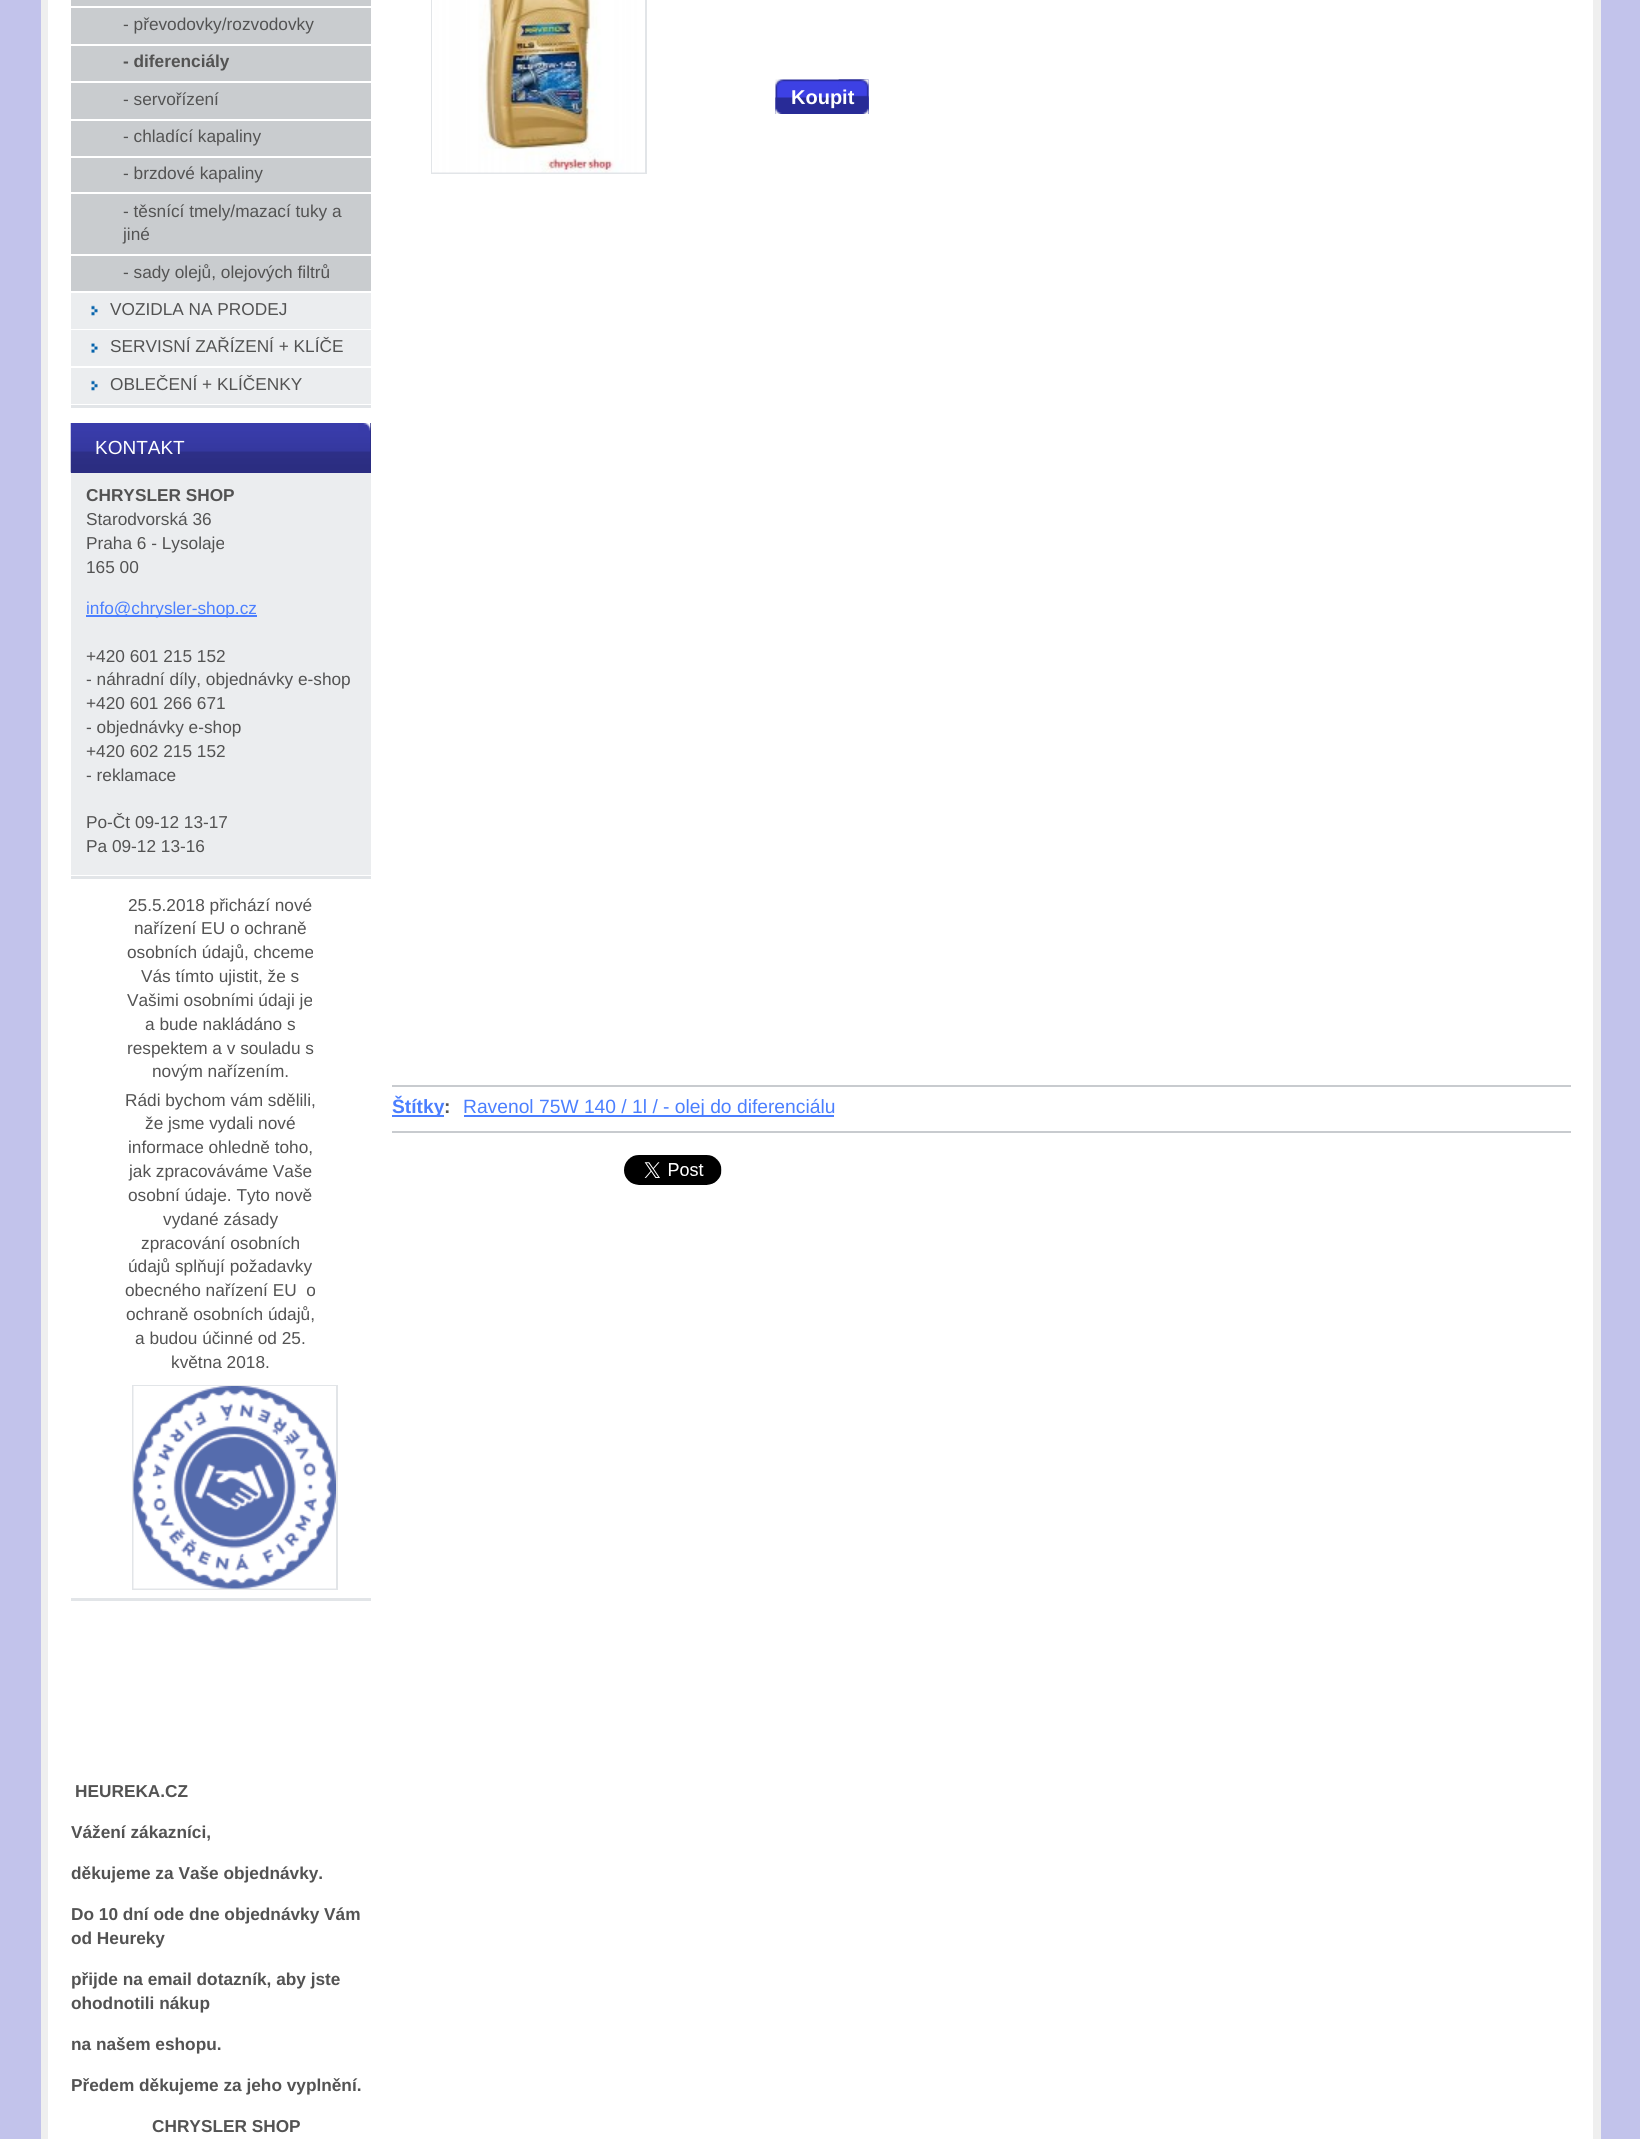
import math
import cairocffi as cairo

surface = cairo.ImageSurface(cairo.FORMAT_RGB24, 1640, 2139)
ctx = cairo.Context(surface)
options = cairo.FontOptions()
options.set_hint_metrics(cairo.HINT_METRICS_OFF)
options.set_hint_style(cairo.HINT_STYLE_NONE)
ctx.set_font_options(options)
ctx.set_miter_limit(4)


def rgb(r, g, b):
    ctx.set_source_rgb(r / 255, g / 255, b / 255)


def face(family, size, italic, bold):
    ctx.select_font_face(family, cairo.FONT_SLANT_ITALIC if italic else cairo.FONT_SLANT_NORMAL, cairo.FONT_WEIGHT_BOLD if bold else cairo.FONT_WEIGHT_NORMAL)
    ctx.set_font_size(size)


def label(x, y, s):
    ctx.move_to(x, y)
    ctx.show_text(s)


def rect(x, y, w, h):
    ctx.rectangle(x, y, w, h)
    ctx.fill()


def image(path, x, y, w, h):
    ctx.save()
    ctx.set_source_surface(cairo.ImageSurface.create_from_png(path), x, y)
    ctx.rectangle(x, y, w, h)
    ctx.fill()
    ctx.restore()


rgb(194, 195, 235)
ctx.paint()
rgb(255, 255, 255)
rect(48, 0, 1545, 2139)
rgb(239, 239, 239)
rect(1593, 0, 8, 2139)
rect(41, 0, 7, 2139)
rgb(226, 229, 232)
rect(71, 405, 300, 3)
rgb(235, 237, 239)
rect(71, 293, 300, 111)
rgb(201, 204, 207)
rect(71, 0, 300, 291)
rgb(255, 255, 255)
rect(71, 6, 300, 2)
rect(71, 44, 300, 2)
face('Liberation Sans', 17.25, 0, 0)
rgb(83, 83, 83)
label(123, 30, '- převodovky/rozvodovky')
rgb(255, 255, 255)
rect(71, 81, 300, 2)
face('Liberation Sans', 17.25, 0, 1)
rgb(83, 83, 83)
label(123, 67, '- diferenciály')
rgb(255, 255, 255)
rect(71, 119, 300, 2)
face('Liberation Sans', 17.25, 0, 0)
rgb(83, 83, 83)
label(123, 105, '- servořízení')
rgb(255, 255, 255)
rect(71, 156, 300, 2)
rgb(83, 83, 83)
label(123, 142, '- chladící kapaliny')
rgb(255, 255, 255)
rect(71, 192, 300, 2)
rgb(83, 83, 83)
label(123, 179, '- brzdové kapaliny')
rgb(255, 255, 255)
rect(71, 254, 300, 2)
rgb(83, 83, 83)
label(123, 217, '- těsnící tmely/mazací tuky a')
label(123, 240, 'jiné')
label(123, 278, '- sady olejů, olejových filtrů')
image('image0.png', 91, 305, 7, 11)
rgb(255, 255, 255)
rect(71, 329, 300, 1)
rgb(83, 83, 83)
label(110, 315, 'VOZIDLA NA PRODEJ')
image('image1.png', 91, 343, 7, 10)
rgb(255, 255, 255)
rect(71, 366, 300, 2)
rgb(83, 83, 83)
label(110, 352, 'SERVISNÍ ZAŘÍZENÍ + KLÍČE')
image('image0.png', 91, 380, 7, 11)
label(110, 390, 'OBLEČENÍ + KLÍČENKY')
rgb(226, 229, 232)
rect(71, 876, 300, 3)
rgb(235, 237, 239)
rect(71, 473, 300, 402)
rgb(43, 45, 129)
rect(71, 423, 300, 50)
image('image2.png', 70, 423, 301, 50)
face('Liberation Sans', 19, 0, 0)
rgb(255, 255, 255)
label(95, 454, 'KONTAKT')
face('Liberation Sans', 17.25, 0, 1)
rgb(83, 83, 83)
label(86, 501, 'CHRYSLER SHOP')
face('Liberation Sans', 17.25, 0, 0)
label(86, 525, 'Starodvorská 36')
label(86, 549, 'Praha 6 - Lysolaje')
label(86, 573, '165 00')
rgb(75, 127, 255)
rect(86, 615, 171, 2)
label(86, 614, 'info@chrysler-shop.cz')
rgb(83, 83, 83)
label(86, 662, '+420 601 215 152')
label(86, 685, '- náhradní díly, objednávky e-shop')
label(86, 709, '+420 601 266 671')
label(86, 733, '- objednávky e-shop')
label(86, 757, '+420 602 215 152')
label(86, 781, '- reklamace')
label(86, 828, 'Po-Čt 09-12 13-17')
label(86, 852, 'Pa 09-12 13-16')
rgb(226, 229, 232)
rect(71, 1598, 300, 3)
rgb(83, 83, 83)
label(128, 911, '25.5.2018 přichází nové')
label(134, 934, 'nařízení EU o ochraně')
label(127, 958, 'osobních údajů, chceme')
label(141, 982, 'Vás tímto ujistit, že s')
label(127, 1006, 'Vašimi osobními údaji je')
label(145, 1030, 'a bude nakládáno s')
label(127, 1054, 'respektem a v souladu s')
label(152, 1077, 'novým nařízením.')
label(125, 1106, 'Rádi bychom vám sdělili,')
label(145, 1129, 'že jsme vydali nové')
label(128, 1153, 'informace ohledně toho,')
label(129, 1177, 'jak zpracováváme Vaše')
label(128, 1201, 'osobní údaje. Tyto nově')
label(163, 1225, 'vydané zásady')
label(141, 1249, 'zpracování osobních')
label(128, 1272, 'údajů splňují požadavky')
label(125, 1296, 'obecného nařízení EU  o')
label(126, 1320, 'ochraně osobních údajů,')
label(135, 1344, 'a budou účinné od 25.')
label(171, 1368, 'května 2018.')
ctx.rectangle(133, 1386, 204, 203)
rgb(226, 229, 232)
ctx.stroke()
image('image3.png', 133, 1386, 203, 203)
face('Liberation Sans', 17.25, 0, 1)
rgb(83, 83, 83)
label(75, 1797, 'HEUREKA.CZ')
label(71, 1838, 'Vážení zákazníci,')
label(71, 1879, 'děkujeme za Vaše objednávky.')
label(71, 1920, 'Do 10 dní ode dne objednávky Vám')
label(71, 1944, 'od Heureky')
label(71, 1985, 'přijde na email dotazník, aby jste')
label(71, 2009, 'ohodnotili nákup')
label(71, 2050, 'na našem eshopu.')
label(71, 2091, 'Předem děkujeme za jeho vyplnění.')
label(152, 2132, 'CHRYSLER SHOP')
ctx.rectangle(432, -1, 214, 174)
rgb(226, 229, 232)
ctx.stroke()
image('image4.png', 432, 0, 213, 173)
image('image5.png', 775, 79, 94, 35)
image('image6.png', 838, 79, 31, 35)
image('image7.png', 775, 97, 94, 17)
image('image8.png', 838, 95, 31, 19)
face('Liberation Sans', 20, 0, 1)
rgb(255, 255, 255)
label(791, 104, 'Koupit')
rgb(200, 203, 207)
rect(392, 1085, 1179, 2)
rect(392, 1131, 1179, 2)
rgb(75, 127, 255)
rect(392, 1115, 52, 2)
face('Liberation Sans', 19.25, 0, 1)
label(392, 1113, 'Štítky')
rgb(83, 83, 83)
label(444, 1113, ':')
rgb(75, 127, 255)
rect(464, 1115, 370, 2)
face('Liberation Sans', 19.25, 0, 0)
label(463, 1113, 'Ravenol 75W 140 / 1l / - olej do diferenciálu')
image('image9.png', 624, 1155, 98, 30)
surface.write_to_png('render.png')
